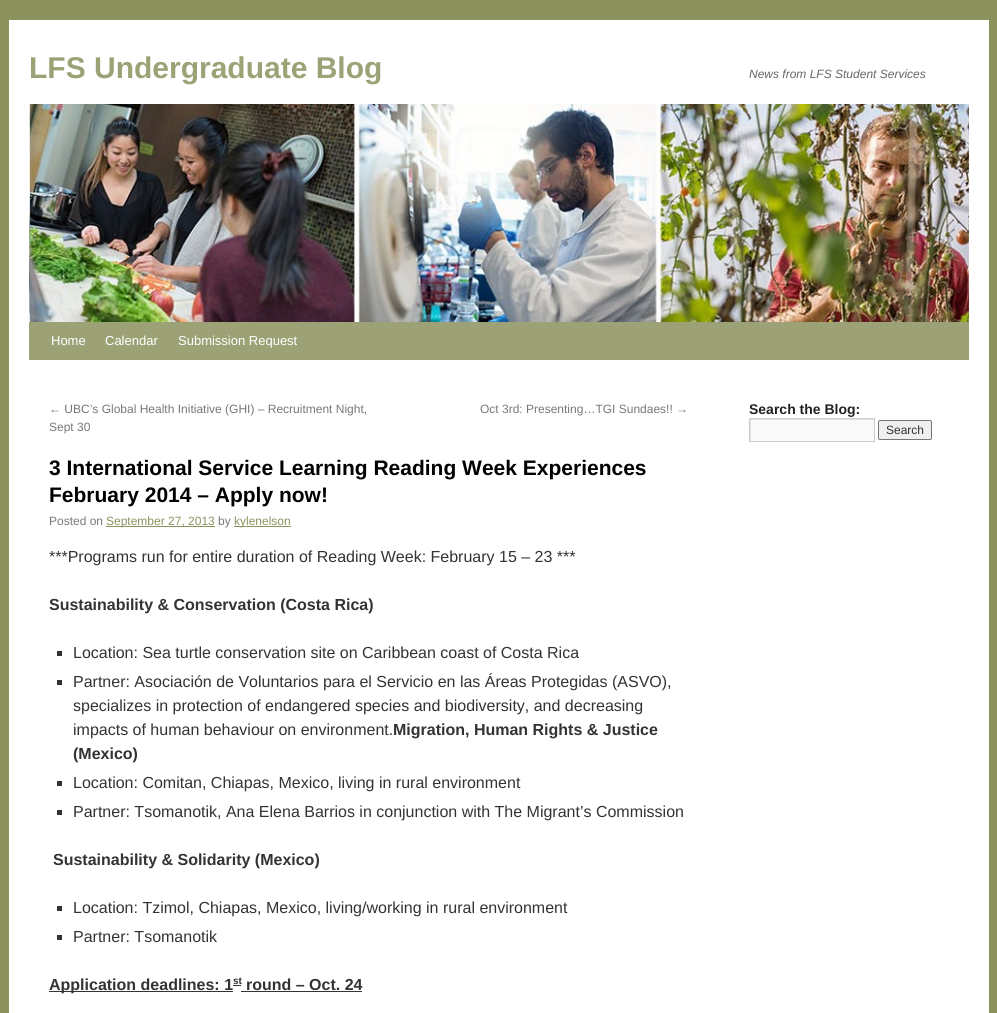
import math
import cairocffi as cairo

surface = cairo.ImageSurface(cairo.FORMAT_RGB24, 997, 1013)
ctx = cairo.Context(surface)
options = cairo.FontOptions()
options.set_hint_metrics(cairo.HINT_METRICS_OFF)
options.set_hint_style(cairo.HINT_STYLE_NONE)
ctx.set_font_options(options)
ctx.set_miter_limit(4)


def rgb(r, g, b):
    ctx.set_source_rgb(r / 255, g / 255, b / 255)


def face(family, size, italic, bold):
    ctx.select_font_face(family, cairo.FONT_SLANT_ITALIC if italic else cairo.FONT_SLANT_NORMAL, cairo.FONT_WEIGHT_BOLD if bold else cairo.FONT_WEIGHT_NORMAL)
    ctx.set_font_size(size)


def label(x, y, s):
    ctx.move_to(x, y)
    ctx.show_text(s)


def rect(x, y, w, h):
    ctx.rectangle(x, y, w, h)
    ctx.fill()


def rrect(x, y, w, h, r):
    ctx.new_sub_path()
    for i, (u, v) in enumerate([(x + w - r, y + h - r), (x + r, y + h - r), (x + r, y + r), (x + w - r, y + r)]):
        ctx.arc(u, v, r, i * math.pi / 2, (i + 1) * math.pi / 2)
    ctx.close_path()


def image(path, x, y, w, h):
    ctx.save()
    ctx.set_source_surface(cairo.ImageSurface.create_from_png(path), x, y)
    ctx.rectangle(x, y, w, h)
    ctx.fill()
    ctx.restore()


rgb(140, 146, 94)
ctx.paint()
rgb(255, 255, 255)
rect(9, 20, 980, 993)
face('Liberation Sans', 30, 0, 1)
rgb(157, 162, 118)
label(29, 78, 'LFS Undergraduate Blog')
face('Liberation Sans', 12, 1, 0)
rgb(102, 102, 102)
label(749, 78, 'News from LFS Student Services')
image('image0.png', 29, 104, 940, 218)
rgb(157, 162, 118)
rect(29, 322, 940, 38)
face('Liberation Sans', 13, 0, 0)
rgb(255, 255, 255)
label(51, 345, 'Home')
label(105, 345, 'Calendar')
label(178, 345, 'Submission Request')
face('Liberation Sans', 12, 0, 0)
rgb(119, 119, 119)
label(49, 413, '← UBC’s Global Health Initiative (GHI) – Recruitment Night,')
label(49, 431, 'Sept 30')
label(480, 413, 'Oct 3rd: Presenting…TGI Sundaes!! →')
face('Liberation Sans', 21, 0, 1)
rgb(0, 0, 0)
label(49, 475, '3 International Service Learning Reading Week Experiences')
label(49, 502, 'February 2014 – Apply now!')
face('Liberation Sans', 12, 0, 0)
rgb(119, 119, 119)
label(49, 525, 'Posted on')
rgb(140, 146, 94)
rect(106, 526, 109, 1)
label(106, 525, 'September 27, 2013')
rgb(119, 119, 119)
label(218, 525, 'by')
rgb(140, 146, 94)
rect(234, 526, 57, 1)
label(234, 525, 'kylenelson')
face('Liberation Sans', 16, 0, 0)
rgb(51, 51, 51)
label(49, 562, '***Programs run for entire duration of Reading Week: February 15 – 23 ***')
face('Liberation Sans', 16, 0, 1)
label(49, 610, 'Sustainability & Conservation (Costa Rica)')
rect(57, 651, 5, 5)
face('Liberation Sans', 16, 0, 0)
label(73, 658, 'Location: Sea turtle conservation site on Caribbean coast of Costa Rica')
rect(57, 680, 5, 5)
label(73, 687, 'Partner: Asociación de Voluntarios para el Servicio en las Áreas Protegidas (ASVO),')
label(73, 711, 'specializes in protection of endangered species and biodiversity, and decreasing')
label(73, 735, 'impacts of human behaviour on environment.')
face('Liberation Sans', 16, 0, 1)
label(393, 735, 'Migration, Human Rights & Justice')
label(73, 759, '(Mexico)')
rect(57, 781, 5, 5)
face('Liberation Sans', 16, 0, 0)
label(73, 788, 'Location: Comitan, Chiapas, Mexico, living in rural environment')
rect(57, 810, 5, 5)
label(73, 817, 'Partner: Tsomanotik, Ana Elena Barrios in conjunction with The Migrant’s Commission')
face('Liberation Sans', 16, 0, 1)
label(53, 865, 'Sustainability & Solidarity (Mexico)')
rect(57, 906, 5, 5)
face('Liberation Sans', 16, 0, 0)
label(73, 913, 'Location: Tzimol, Chiapas, Mexico, living/working in rural environment')
rect(57, 935, 5, 5)
label(73, 942, 'Partner: Tsomanotik')
rect(49, 991, 184, 1)
face('Liberation Sans', 16, 0, 1)
label(49, 990, 'Application deadlines: 1')
rect(233, 985, 8, 1)
face('Liberation Sans', 10, 0, 1)
label(233, 984, 'st')
face('Liberation Sans', 16, 0, 1)
label(246, 990, 'round – Oct. 24')
rect(241, 991, 121, 1)
face('Liberation Sans', 14, 0, 1)
rgb(34, 34, 34)
label(749, 414, 'Search the Blog:')
rgb(249, 249, 249)
rect(751, 420, 123, 21)
ctx.save()
ctx.rectangle(750, 419, 124, 22)
ctx.clip()
rgb(224, 224, 224)
ctx.set_fill_rule(cairo.FILL_RULE_EVEN_ODD)
ctx.new_path()
ctx.move_to(651, 320)
ctx.line_to(973, 320)
ctx.line_to(973, 540)
ctx.line_to(651, 540)
ctx.close_path()
ctx.move_to(751, 420)
ctx.line_to(875, 420)
ctx.line_to(875, 442)
ctx.line_to(751, 442)
ctx.close_path()
ctx.fill()
ctx.restore()
ctx.rectangle(749.5, 418.5, 125, 23)
rgb(204, 204, 204)
ctx.set_line_width(1)
ctx.stroke()
rgb(239, 239, 239)
rrect(878.5, 420.5, 53, 19, 1.5)
ctx.fill_preserve()
rgb(118, 118, 118)
ctx.stroke()
face('Liberation Sans', 12, 0, 0)
rgb(51, 51, 51)
label(886, 434, 'Search')
surface.write_to_png('render.png')
